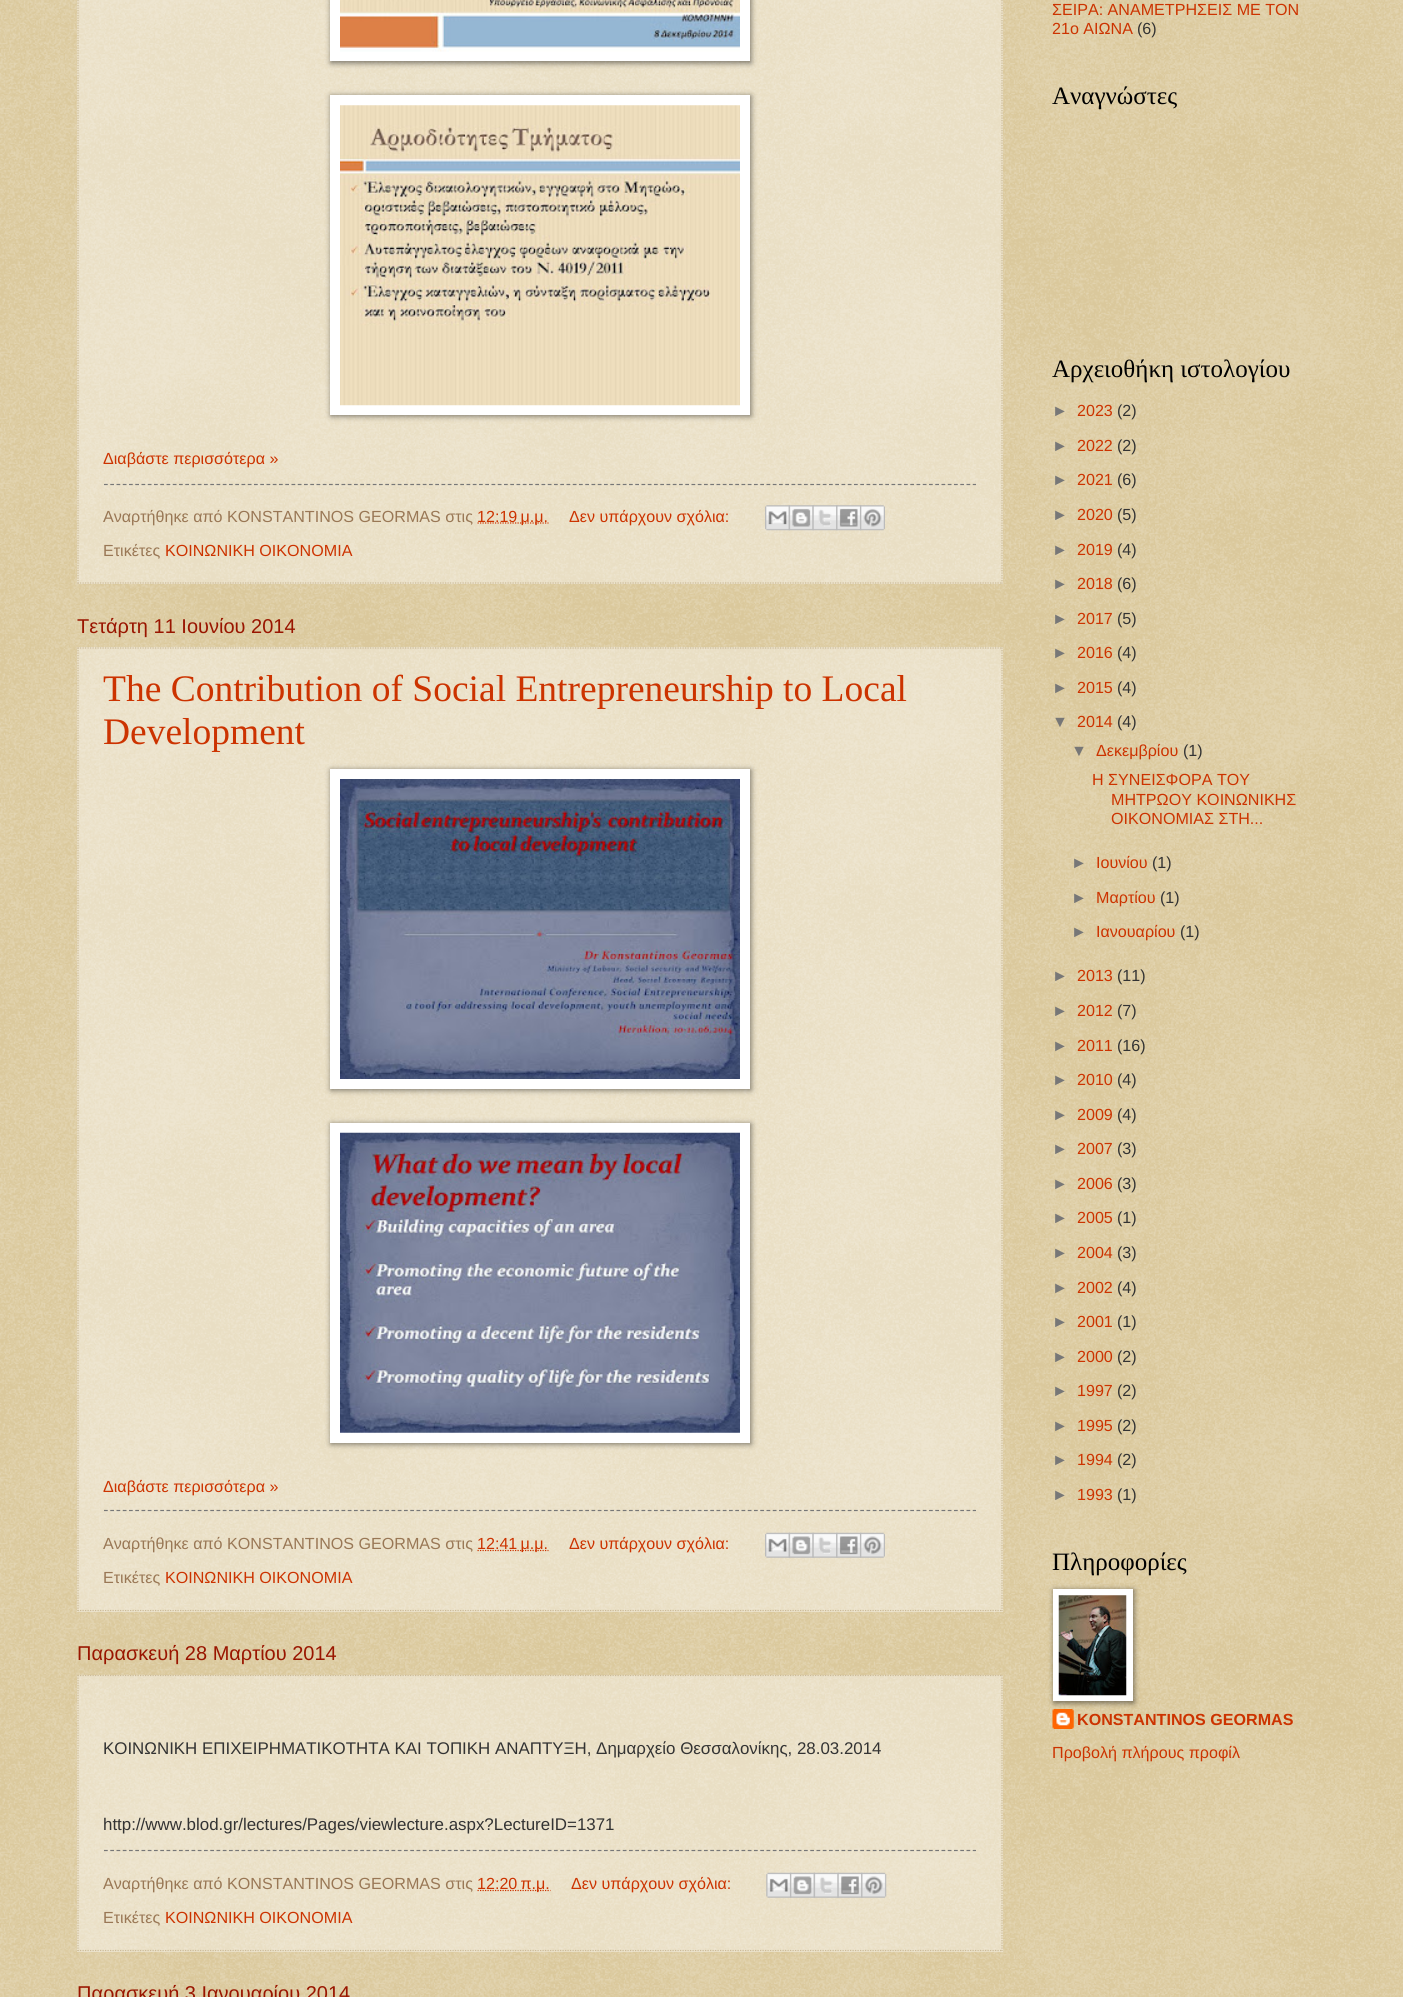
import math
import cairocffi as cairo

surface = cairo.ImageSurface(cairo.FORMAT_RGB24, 1403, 1997)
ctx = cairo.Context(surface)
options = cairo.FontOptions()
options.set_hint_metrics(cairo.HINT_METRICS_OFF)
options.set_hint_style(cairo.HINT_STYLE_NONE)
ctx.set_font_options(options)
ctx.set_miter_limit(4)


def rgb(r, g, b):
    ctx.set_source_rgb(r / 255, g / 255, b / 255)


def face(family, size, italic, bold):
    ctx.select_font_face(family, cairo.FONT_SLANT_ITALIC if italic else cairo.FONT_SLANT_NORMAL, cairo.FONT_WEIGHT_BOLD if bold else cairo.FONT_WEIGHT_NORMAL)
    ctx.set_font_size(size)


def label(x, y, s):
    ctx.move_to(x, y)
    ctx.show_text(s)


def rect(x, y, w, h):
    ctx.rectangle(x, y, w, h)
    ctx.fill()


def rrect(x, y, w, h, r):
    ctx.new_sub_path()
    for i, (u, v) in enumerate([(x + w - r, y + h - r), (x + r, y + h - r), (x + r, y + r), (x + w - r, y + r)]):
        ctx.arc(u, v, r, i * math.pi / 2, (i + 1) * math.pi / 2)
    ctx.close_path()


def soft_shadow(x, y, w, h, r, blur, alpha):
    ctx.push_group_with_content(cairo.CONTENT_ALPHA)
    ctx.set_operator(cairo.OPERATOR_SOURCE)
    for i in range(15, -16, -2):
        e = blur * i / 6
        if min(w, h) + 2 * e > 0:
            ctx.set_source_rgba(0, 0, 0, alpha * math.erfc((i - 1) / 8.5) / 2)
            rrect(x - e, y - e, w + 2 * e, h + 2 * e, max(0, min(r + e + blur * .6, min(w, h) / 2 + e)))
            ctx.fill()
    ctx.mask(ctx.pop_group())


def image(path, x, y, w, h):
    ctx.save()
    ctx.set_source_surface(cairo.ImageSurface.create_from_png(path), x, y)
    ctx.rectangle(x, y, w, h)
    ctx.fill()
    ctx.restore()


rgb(192, 161, 84)
ctx.paint()
image('image0.png', 0, 0, 1403, 1997)
ctx.set_source_rgba(1, 1, 1, 0.4)
rect(77, 0, 926, 584)
ctx.new_path()
ctx.move_to(1002, -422.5)
ctx.line_to(1002, 584)
rgb(204, 187, 153)
ctx.set_line_width(1.2)
ctx.set_dash([1.25, 1.25])
ctx.stroke()
ctx.new_path()
ctx.move_to(77.5, 583)
ctx.line_to(1002.5, 583)
ctx.stroke()
ctx.new_path()
ctx.move_to(78, -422.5)
ctx.line_to(78, 584)
ctx.stroke()
rgb(0, 0, 0)
soft_shadow(331, -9, 420, 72, 0, 3, 0.5)
rgb(255, 255, 255)
rect(330, 0, 420, 61)
image('image1.png', 340, 0, 400, 52)
rgb(0, 0, 0)
soft_shadow(331, 96, 420, 320, 0, 3, 0.5)
rgb(255, 255, 255)
rect(330, 95, 420, 320)
image('image2.png', 340, 105, 400, 301)
face('Liberation Sans', 16.1, 0, 0)
rgb(204, 51, 0)
label(103, 464, 'Διαβάστε περισσότερα »')
ctx.new_path()
ctx.move_to(104, 484.5)
ctx.line_to(976, 484.5)
rgb(119, 119, 119)
ctx.set_dash([3.75, 2.5])
ctx.stroke()
rgb(153, 119, 85)
label(103, 522, 'Αναρτήθηκε από KONSTANTINOS GEORMAS στις')
ctx.new_path()
ctx.move_to(477.5, 523)
ctx.line_to(548.5, 523)
rgb(204, 51, 0)
ctx.set_dash([1.25, 1.25])
ctx.stroke()
label(477, 522, '12:19 μ.μ.')
label(569, 522, 'Δεν υπάρχουν σχόλια:')
image('image3.png', 765, 505, 25, 26)
image('image4.png', 788, 505, 26, 26)
image('image5.png', 812, 505, 26, 26)
image('image6.png', 836, 505, 26, 26)
image('image7.png', 860, 505, 25, 26)
rgb(153, 119, 85)
label(103, 556, 'Ετικέτες')
rgb(204, 51, 0)
label(165, 556, 'ΚΟΙΝΩΝΙΚΗ ΟΙΚΟΝΟΜΙΑ')
face('Liberation Sans', 20, 0, 0)
rgb(153, 21, 0)
label(77, 633, 'Τετάρτη 11 Ιουνίου 2014')
ctx.set_source_rgba(1, 1, 1, 0.4)
rect(77, 647, 926, 965)
ctx.new_path()
ctx.move_to(77.5, 648)
ctx.line_to(1002.5, 648)
rgb(204, 187, 153)
ctx.stroke()
ctx.new_path()
ctx.move_to(1002, 647.5)
ctx.line_to(1002, 1611)
ctx.stroke()
ctx.new_path()
ctx.move_to(77.5, 1610.5)
ctx.line_to(1002.5, 1610.5)
ctx.stroke()
ctx.new_path()
ctx.move_to(78, 647.5)
ctx.line_to(78, 1611)
ctx.stroke()
face('Liberation Serif', 37.5, 0, 0)
rgb(204, 51, 0)
label(103, 701, 'The Contribution of Social Entrepreneurship to Local')
label(103, 744, 'Development')
rgb(0, 0, 0)
soft_shadow(331, 770, 420, 320, 0, 3, 0.5)
rgb(255, 255, 255)
rect(330, 769, 420, 320)
image('image8.png', 340, 779, 400, 300)
rgb(0, 0, 0)
soft_shadow(331, 1124, 420, 320, 0, 3, 0.5)
rgb(255, 255, 255)
rect(330, 1123, 420, 320)
image('image9.png', 340, 1132, 400, 301)
face('Liberation Sans', 16.1, 0, 0)
rgb(204, 51, 0)
label(103, 1492, 'Διαβάστε περισσότερα »')
ctx.new_path()
ctx.move_to(104, 1510.5)
ctx.line_to(976, 1510.5)
rgb(119, 119, 119)
ctx.set_dash([3.75, 2.5])
ctx.stroke()
rgb(153, 119, 85)
label(103, 1549, 'Αναρτήθηκε από KONSTANTINOS GEORMAS στις')
ctx.new_path()
ctx.move_to(477.5, 1550.5)
ctx.line_to(548.5, 1550.5)
rgb(204, 51, 0)
ctx.set_dash([1.25, 1.25])
ctx.stroke()
label(477, 1549, '12:41 μ.μ.')
label(569, 1549, 'Δεν υπάρχουν σχόλια:')
image('image10.png', 765, 1532, 25, 26)
image('image11.png', 788, 1532, 26, 26)
image('image12.png', 812, 1532, 26, 26)
image('image13.png', 836, 1532, 26, 26)
image('image14.png', 860, 1532, 25, 26)
rgb(153, 119, 85)
label(103, 1583, 'Ετικέτες')
rgb(204, 51, 0)
label(165, 1583, 'ΚΟΙΝΩΝΙΚΗ ΟΙΚΟΝΟΜΙΑ')
face('Liberation Sans', 20, 0, 0)
rgb(153, 21, 0)
label(77, 1660, 'Παρασκευή 28 Μαρτίου 2014')
ctx.set_source_rgba(1, 1, 1, 0.4)
rect(77, 1675, 926, 277)
ctx.new_path()
ctx.move_to(77.5, 1675.5)
ctx.line_to(1002.5, 1675.5)
rgb(204, 187, 153)
ctx.stroke()
ctx.new_path()
ctx.move_to(1002, 1675)
ctx.line_to(1002, 1951)
ctx.stroke()
ctx.new_path()
ctx.move_to(77.5, 1950.5)
ctx.line_to(1002.5, 1950.5)
ctx.stroke()
ctx.new_path()
ctx.move_to(78, 1675)
ctx.line_to(78, 1951)
ctx.stroke()
face('Liberation Sans', 16.9, 0, 0)
rgb(51, 51, 51)
label(103, 1754, 'ΚΟΙΝΩΝΙΚΗ ΕΠΙΧΕΙΡΗΜΑΤΙΚΟΤΗΤΑ ΚΑΙ ΤΟΠΙΚΗ ΑΝΑΠΤΥΞΗ, Δημαρχείο Θεσσαλονίκης, 28.03.2014')
label(103, 1830, 'http://www.blod.gr/lectures/Pages/viewlecture.aspx?LectureID=1371')
ctx.new_path()
ctx.move_to(104, 1850.5)
ctx.line_to(976, 1850.5)
rgb(119, 119, 119)
ctx.set_dash([3.75, 2.5])
ctx.stroke()
face('Liberation Sans', 16.1, 0, 0)
rgb(153, 119, 85)
label(103, 1889, 'Αναρτήθηκε από KONSTANTINOS GEORMAS στις')
ctx.new_path()
ctx.move_to(477.5, 1890.5)
ctx.line_to(550.5, 1890.5)
rgb(204, 51, 0)
ctx.set_dash([1.25, 1.25])
ctx.stroke()
label(477, 1889, '12:20 π.μ.')
label(571, 1889, 'Δεν υπάρχουν σχόλια:')
image('image15.png', 766, 1872, 26, 26)
image('image16.png', 790, 1872, 25, 26)
image('image17.png', 813, 1872, 26, 26)
image('image18.png', 837, 1872, 26, 26)
image('image19.png', 861, 1872, 26, 26)
rgb(153, 119, 85)
label(103, 1923, 'Ετικέτες')
rgb(204, 51, 0)
label(165, 1923, 'ΚΟΙΝΩΝΙΚΗ ΟΙΚΟΝΟΜΙΑ')
face('Liberation Sans', 20, 0, 0)
rgb(153, 21, 0)
label(77, 2000, 'Παρασκευή 3 Ιανουαρίου 2014')
face('Liberation Sans', 16.1, 0, 0)
rgb(204, 51, 0)
label(1052, 15, 'ΣΕΙΡΑ: ΑΝΑΜΕΤΡΗΣΕΙΣ ΜΕ ΤΟΝ')
label(1052, 34, '21ο ΑΙΩΝΑ')
rgb(51, 51, 51)
label(1137, 34, '(6)')
face('Liberation Serif', 25, 0, 0)
rgb(0, 0, 0)
label(1052, 104, 'Αναγνώστες')
label(1052, 377, 'Αρχειοθήκη ιστολογίου')
face('Liberation Sans', 16.1, 0, 0)
rgb(119, 119, 119)
label(1052, 416, '►')
rgb(204, 51, 0)
label(1077, 416, '2023')
rgb(51, 51, 51)
label(1117, 416, '(2)')
rgb(119, 119, 119)
label(1052, 451, '►')
rgb(204, 51, 0)
label(1077, 451, '2022')
rgb(51, 51, 51)
label(1117, 451, '(2)')
rgb(119, 119, 119)
label(1052, 485, '►')
rgb(204, 51, 0)
label(1077, 485, '2021')
rgb(51, 51, 51)
label(1117, 485, '(6)')
rgb(119, 119, 119)
label(1052, 520, '►')
rgb(204, 51, 0)
label(1077, 520, '2020')
rgb(51, 51, 51)
label(1117, 520, '(5)')
rgb(119, 119, 119)
label(1052, 555, '►')
rgb(204, 51, 0)
label(1077, 555, '2019')
rgb(51, 51, 51)
label(1117, 555, '(4)')
rgb(119, 119, 119)
label(1052, 589, '►')
rgb(204, 51, 0)
label(1077, 589, '2018')
rgb(51, 51, 51)
label(1117, 589, '(6)')
rgb(119, 119, 119)
label(1052, 624, '►')
rgb(204, 51, 0)
label(1077, 624, '2017')
rgb(51, 51, 51)
label(1117, 624, '(5)')
rgb(119, 119, 119)
label(1052, 658, '►')
rgb(204, 51, 0)
label(1077, 658, '2016')
rgb(51, 51, 51)
label(1117, 658, '(4)')
rgb(119, 119, 119)
label(1052, 693, '►')
rgb(204, 51, 0)
label(1077, 693, '2015')
rgb(51, 51, 51)
label(1117, 693, '(4)')
rgb(119, 119, 119)
label(1052, 727, '▼')
rgb(204, 51, 0)
label(1077, 727, '2014')
rgb(51, 51, 51)
label(1117, 727, '(4)')
rgb(119, 119, 119)
label(1071, 756, '▼')
rgb(204, 51, 0)
label(1096, 756, 'Δεκεμβρίου')
rgb(51, 51, 51)
label(1183, 756, '(1)')
rgb(204, 51, 0)
label(1092, 785, 'Η ΣΥΝΕΙΣΦΟΡΑ ΤΟΥ')
label(1111, 805, 'ΜΗΤΡΩΟΥ ΚΟΙΝΩΝΙΚΗΣ')
label(1111, 824, 'ΟΙΚΟΝΟΜΙΑΣ ΣΤΗ...')
rgb(119, 119, 119)
label(1071, 868, '►')
rgb(204, 51, 0)
label(1096, 868, 'Ιουνίου')
rgb(51, 51, 51)
label(1152, 868, '(1)')
rgb(119, 119, 119)
label(1071, 903, '►')
rgb(204, 51, 0)
label(1096, 903, 'Μαρτίου')
rgb(51, 51, 51)
label(1160, 903, '(1)')
rgb(119, 119, 119)
label(1071, 937, '►')
rgb(204, 51, 0)
label(1096, 937, 'Ιανουαρίου')
rgb(51, 51, 51)
label(1180, 937, '(1)')
rgb(119, 119, 119)
label(1052, 981, '►')
rgb(204, 51, 0)
label(1077, 981, '2013')
rgb(51, 51, 51)
label(1117, 981, '(11)')
rgb(119, 119, 119)
label(1052, 1016, '►')
rgb(204, 51, 0)
label(1077, 1016, '2012')
rgb(51, 51, 51)
label(1117, 1016, '(7)')
rgb(119, 119, 119)
label(1052, 1051, '►')
rgb(204, 51, 0)
label(1077, 1051, '2011')
rgb(51, 51, 51)
label(1117, 1051, '(16)')
rgb(119, 119, 119)
label(1052, 1085, '►')
rgb(204, 51, 0)
label(1077, 1085, '2010')
rgb(51, 51, 51)
label(1117, 1085, '(4)')
rgb(119, 119, 119)
label(1052, 1120, '►')
rgb(204, 51, 0)
label(1077, 1120, '2009')
rgb(51, 51, 51)
label(1117, 1120, '(4)')
rgb(119, 119, 119)
label(1052, 1154, '►')
rgb(204, 51, 0)
label(1077, 1154, '2007')
rgb(51, 51, 51)
label(1117, 1154, '(3)')
rgb(119, 119, 119)
label(1052, 1189, '►')
rgb(204, 51, 0)
label(1077, 1189, '2006')
rgb(51, 51, 51)
label(1117, 1189, '(3)')
rgb(119, 119, 119)
label(1052, 1223, '►')
rgb(204, 51, 0)
label(1077, 1223, '2005')
rgb(51, 51, 51)
label(1117, 1223, '(1)')
rgb(119, 119, 119)
label(1052, 1258, '►')
rgb(204, 51, 0)
label(1077, 1258, '2004')
rgb(51, 51, 51)
label(1117, 1258, '(3)')
rgb(119, 119, 119)
label(1052, 1293, '►')
rgb(204, 51, 0)
label(1077, 1293, '2002')
rgb(51, 51, 51)
label(1117, 1293, '(4)')
rgb(119, 119, 119)
label(1052, 1327, '►')
rgb(204, 51, 0)
label(1077, 1327, '2001')
rgb(51, 51, 51)
label(1117, 1327, '(1)')
rgb(119, 119, 119)
label(1052, 1362, '►')
rgb(204, 51, 0)
label(1077, 1362, '2000')
rgb(51, 51, 51)
label(1117, 1362, '(2)')
rgb(119, 119, 119)
label(1052, 1396, '►')
rgb(204, 51, 0)
label(1077, 1396, '1997')
rgb(51, 51, 51)
label(1117, 1396, '(2)')
rgb(119, 119, 119)
label(1052, 1431, '►')
rgb(204, 51, 0)
label(1077, 1431, '1995')
rgb(51, 51, 51)
label(1117, 1431, '(2)')
rgb(119, 119, 119)
label(1052, 1465, '►')
rgb(204, 51, 0)
label(1077, 1465, '1994')
rgb(51, 51, 51)
label(1117, 1465, '(2)')
rgb(119, 119, 119)
label(1052, 1500, '►')
rgb(204, 51, 0)
label(1077, 1500, '1993')
rgb(51, 51, 51)
label(1117, 1500, '(1)')
face('Liberation Serif', 25, 0, 0)
rgb(0, 0, 0)
label(1052, 1570, 'Πληροφορίες')
image('image21.png', 1052, 1709, 22, 20)
rgb(0, 0, 0)
soft_shadow(1054, 1590, 80, 113, 0, 3, 0.5)
rgb(255, 255, 255)
rect(1053, 1589, 80, 112)
image('image20.png', 1058, 1595, 69, 101)
face('Liberation Sans', 16.1, 0, 1)
rgb(204, 51, 0)
label(1077, 1725, 'KONSTANTINOS GEORMAS')
face('Liberation Sans', 16.1, 0, 0)
label(1052, 1758, 'Προβολή πλήρους προφίλ')
surface.write_to_png('render.png')
